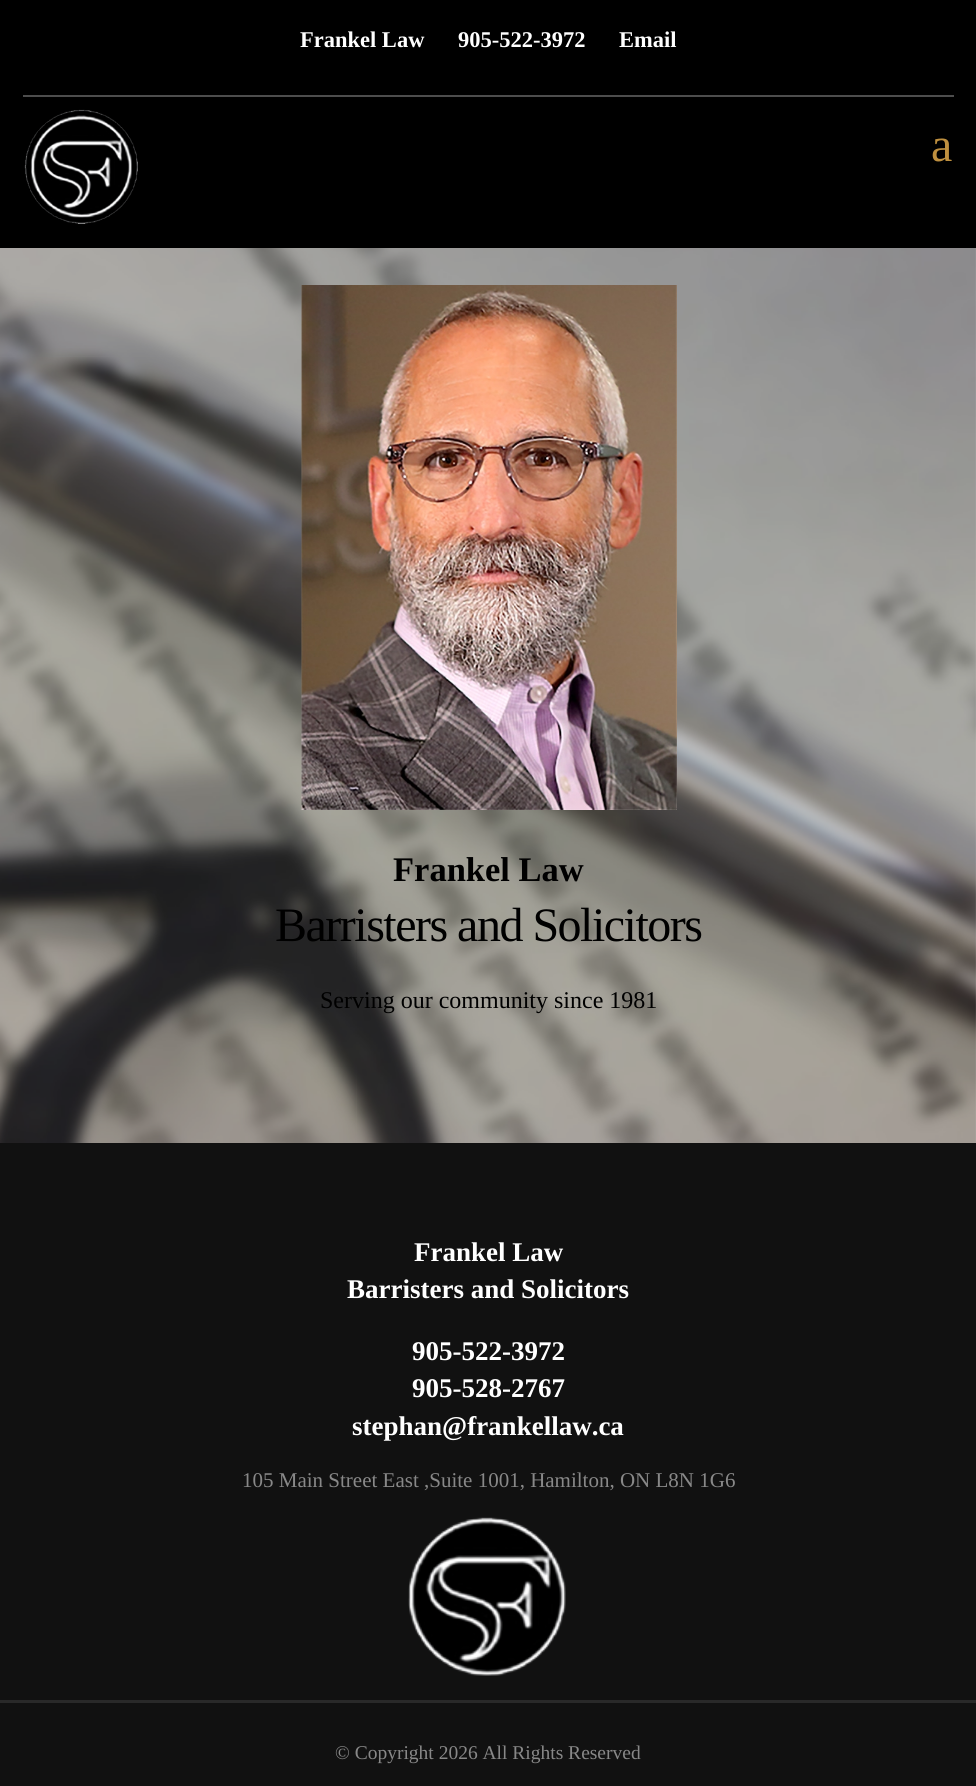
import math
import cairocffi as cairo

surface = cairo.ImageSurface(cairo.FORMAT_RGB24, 976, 1786)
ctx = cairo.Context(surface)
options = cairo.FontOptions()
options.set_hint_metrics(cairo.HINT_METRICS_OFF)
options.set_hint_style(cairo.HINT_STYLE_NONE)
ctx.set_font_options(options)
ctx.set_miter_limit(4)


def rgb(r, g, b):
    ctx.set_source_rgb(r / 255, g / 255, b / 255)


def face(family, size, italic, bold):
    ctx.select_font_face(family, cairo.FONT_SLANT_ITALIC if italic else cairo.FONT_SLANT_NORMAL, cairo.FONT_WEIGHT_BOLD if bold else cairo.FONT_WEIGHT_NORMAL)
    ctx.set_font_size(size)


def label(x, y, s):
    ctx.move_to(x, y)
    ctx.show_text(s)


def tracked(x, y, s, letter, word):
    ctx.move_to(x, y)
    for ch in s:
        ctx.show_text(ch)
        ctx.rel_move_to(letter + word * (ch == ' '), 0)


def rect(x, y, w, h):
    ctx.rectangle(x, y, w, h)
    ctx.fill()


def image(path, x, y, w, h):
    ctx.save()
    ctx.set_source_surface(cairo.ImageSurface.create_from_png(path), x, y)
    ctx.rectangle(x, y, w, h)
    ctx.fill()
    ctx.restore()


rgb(255, 255, 255)
ctx.paint()
rgb(0, 0, 0)
rect(0, 0, 976, 248)
rgb(77, 77, 77)
rect(23, 95, 931, 2)
face('Liberation Serif', 22.5, 0, 1)
rgb(255, 255, 255)
label(300, 47, 'Frankel Law')
label(458, 47, '905-522-3972')
label(619, 47, 'Email')
image('image0.png', 24, 109, 114, 115)
face('Liberation Serif', 48, 0, 0)
rgb(191, 144, 63)
label(931, 161, 'a')
image('image1.png', 0, 248, 976, 895)
image('image2.png', 301, 285, 376, 525)
face('Liberation Serif', 34.5, 0, 1)
rgb(0, 0, 0)
label(393, 881, 'Frankel Law')
face('Liberation Serif', 48, 0, 0)
tracked(275, 941, 'Barristers and Solicitors', -1.5, 0)
face('Liberation Serif', 24, 0, 0)
label(320, 1008, 'Serving our community since 1981')
rgb(17, 17, 17)
rect(0, 1143, 976, 643)
face('Liberation Serif', 27, 0, 1)
rgb(255, 255, 255)
label(414, 1261, 'Frankel Law')
label(347, 1298, 'Barristers and Solicitors')
label(412, 1360, '905-522-3972')
label(412, 1397, '905-528-2767')
label(352, 1435, 'stephan@frankellaw.ca')
face('Liberation Serif', 21, 0, 0)
rgb(136, 136, 136)
label(242, 1487, '105 Main Street East ,Suite 1001, Hamilton, ON L8N 1G6')
image('image3.png', 408, 1517, 158, 159)
rgb(41, 41, 41)
rect(0, 1700, 976, 3)
face('Liberation Serif', 19.5, 0, 0)
rgb(136, 136, 136)
label(335, 1759, '© Copyright 2026 All Rights Reserved')
surface.write_to_png('render.png')
